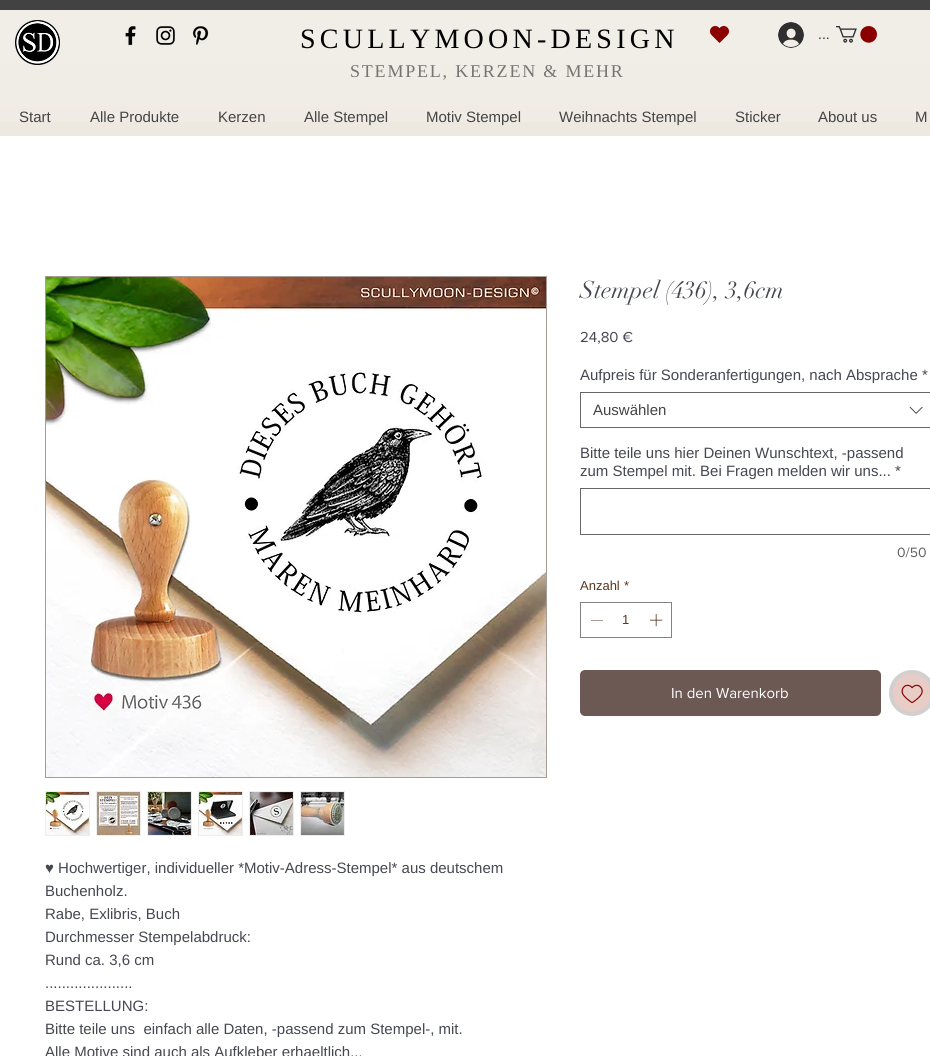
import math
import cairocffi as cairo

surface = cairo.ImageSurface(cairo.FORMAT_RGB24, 930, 1056)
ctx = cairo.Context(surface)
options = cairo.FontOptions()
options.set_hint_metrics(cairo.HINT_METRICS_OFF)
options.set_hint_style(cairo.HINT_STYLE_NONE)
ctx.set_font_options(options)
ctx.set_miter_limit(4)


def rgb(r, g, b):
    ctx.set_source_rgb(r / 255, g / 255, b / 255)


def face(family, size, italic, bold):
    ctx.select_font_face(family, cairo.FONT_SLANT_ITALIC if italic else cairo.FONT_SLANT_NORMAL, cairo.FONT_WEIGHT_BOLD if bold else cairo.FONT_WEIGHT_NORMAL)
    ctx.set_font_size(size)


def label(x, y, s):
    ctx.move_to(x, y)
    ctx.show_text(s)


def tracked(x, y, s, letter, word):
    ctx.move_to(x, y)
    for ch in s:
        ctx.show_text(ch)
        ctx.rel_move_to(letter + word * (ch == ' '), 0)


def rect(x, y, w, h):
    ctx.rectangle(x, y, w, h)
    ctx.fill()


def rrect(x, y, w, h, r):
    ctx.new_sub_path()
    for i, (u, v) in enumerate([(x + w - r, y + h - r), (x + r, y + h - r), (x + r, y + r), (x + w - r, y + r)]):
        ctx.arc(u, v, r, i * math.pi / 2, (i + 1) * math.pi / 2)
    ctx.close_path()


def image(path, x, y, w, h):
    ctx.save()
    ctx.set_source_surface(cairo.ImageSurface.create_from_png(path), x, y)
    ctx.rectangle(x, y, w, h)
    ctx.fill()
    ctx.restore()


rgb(255, 255, 255)
ctx.paint()
rgb(237, 233, 225)
rect(0, 10, 930, 126)
image('image0.png', 0, 10, 930, 112)
rgb(66, 66, 66)
rect(0, 0, 930, 10)
image('image1.png', 15, 20, 45, 45)
image('image2.png', 125, 26, 11, 20)
image('image3.png', 156, 26, 19, 19)
image('image4.png', 192, 26, 17, 19)
face('Liberation Serif', 28, 0, 0)
rgb(0, 0, 0)
tracked(300, 48, 'SCULLYMOON-DESIGN', 4.25, 0)
image('image5.png', 710, 26, 19, 17)
image('image6.png', 778, 22, 26, 26)
face('Liberation Sans', 14, 0, 0)
rgb(47, 47, 48)
label(818, 39, '...')
image('image7.png', 836, 26, 41, 17)
face('Liberation Serif', 18, 0, 0)
rgb(118, 116, 115)
tracked(350, 77, 'STEMPEL, KERZEN & MEHR', 1.8, 0)
face('Liberation Sans', 15, 0, 0)
rgb(68, 68, 68)
label(19, 122, 'Start')
label(90, 122, 'Alle Produkte')
label(218, 122, 'Kerzen')
label(304, 122, 'Alle Stempel')
label(426, 122, 'Motiv Stempel')
label(559, 122, 'Weihnachts Stempel')
label(735, 122, 'Sticker')
label(818, 122, 'About us')
label(915, 122, 'M')
face('didot', 24, 0, 0)
rgb(69, 71, 81)
label(580, 298, 'Stempel (436), 3,6cm')
face('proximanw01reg', 15, 0, 0)
label(580, 342, '24,80 €')
face('Liberation Sans', 15, 0, 0)
label(580, 380, 'Aufpreis für Sonderanfertigungen, nach Absprache *')
ctx.rectangle(580.5, 392.5, 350, 35)
rgb(102, 102, 102)
ctx.set_line_width(1)
ctx.stroke()
rgb(68, 68, 68)
label(593, 415, 'Auswählen')
image('image8.png', 909, 406, 14, 8)
rgb(69, 71, 81)
label(580, 458, 'Bitte teile uns hier Deinen Wunschtext, -passend')
label(580, 476, 'zum Stempel mit. Bei Fragen melden wir uns... *')
ctx.rectangle(580.5, 488.5, 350, 46)
rgb(102, 102, 102)
ctx.stroke()
face('proximanw01reg', 14, 0, 0)
rgb(95, 95, 95)
label(897, 557, '0/50')
face('Liberation Sans', 13, 0, 0)
rgb(91, 53, 30)
label(580, 590, 'Anzahl')
label(624, 590, '*')
ctx.rectangle(580.5, 602.5, 91, 35)
rgb(130, 130, 131)
ctx.stroke()
rgb(91, 53, 30)
ctx.set_fill_rule(cairo.FILL_RULE_EVEN_ODD)
ctx.new_path()
ctx.move_to(603, 620)
ctx.line_to(603, 620.5)
ctx.line_to(591, 620.5)
ctx.line_to(591, 620)
ctx.close_path()
ctx.fill()
label(622, 624, '1')
image('image9.png', 650, 614, 13, 13)
rgb(108, 89, 84)
rrect(580, 670, 301, 46, 5)
ctx.fill()
face('proximanw01reg', 15, 0, 0)
rgb(255, 255, 255)
label(671, 698, 'In den Warenkorb')
rgb(232, 205, 199)
ctx.new_path()
ctx.arc(912, 693, 21, 0, 2 * math.pi)
ctx.fill_preserve()
rgb(210, 207, 207)
ctx.set_line_width(4)
ctx.stroke()
image('image10.png', 901, 684, 22, 19)
ctx.rectangle(45.5, 276.5, 501, 501)
rgb(167, 155, 152)
ctx.set_line_width(1)
ctx.stroke()
image('image11.png', 46, 277, 500, 500)
rgb(237, 237, 238)
rect(45, 791, 45, 45)
image('image12.png', 46, 792, 43, 43)
rect(96, 791, 45, 45)
image('image13.png', 97, 792, 43, 43)
rect(147, 791, 45, 45)
image('image14.png', 148, 792, 43, 43)
rect(198, 791, 45, 45)
image('image15.png', 199, 792, 43, 43)
rect(249, 791, 45, 45)
image('image16.png', 250, 792, 43, 43)
rect(300, 791, 45, 45)
image('image17.png', 301, 792, 43, 43)
face('Liberation Sans', 15, 0, 0)
rgb(69, 71, 81)
label(45, 873, '♥ Hochwertiger, individueller *Motiv-Adress-Stempel* aus deutschem')
label(45, 896, 'Buchenholz.')
label(45, 919, 'Rabe, Exlibris, Buch')
label(45, 942, 'Durchmesser Stempelabdruck:')
label(45, 965, 'Rund ca. 3,6 cm')
label(45, 988, '.....................')
label(45, 1011, 'BESTELLUNG:')
label(45, 1034, 'Bitte teile uns  einfach alle Daten, -passend zum Stempel-, mit.')
label(45, 1057, 'Alle Motive sind auch als Aufkleber erhaeltlich...')
surface.write_to_png('render.png')
